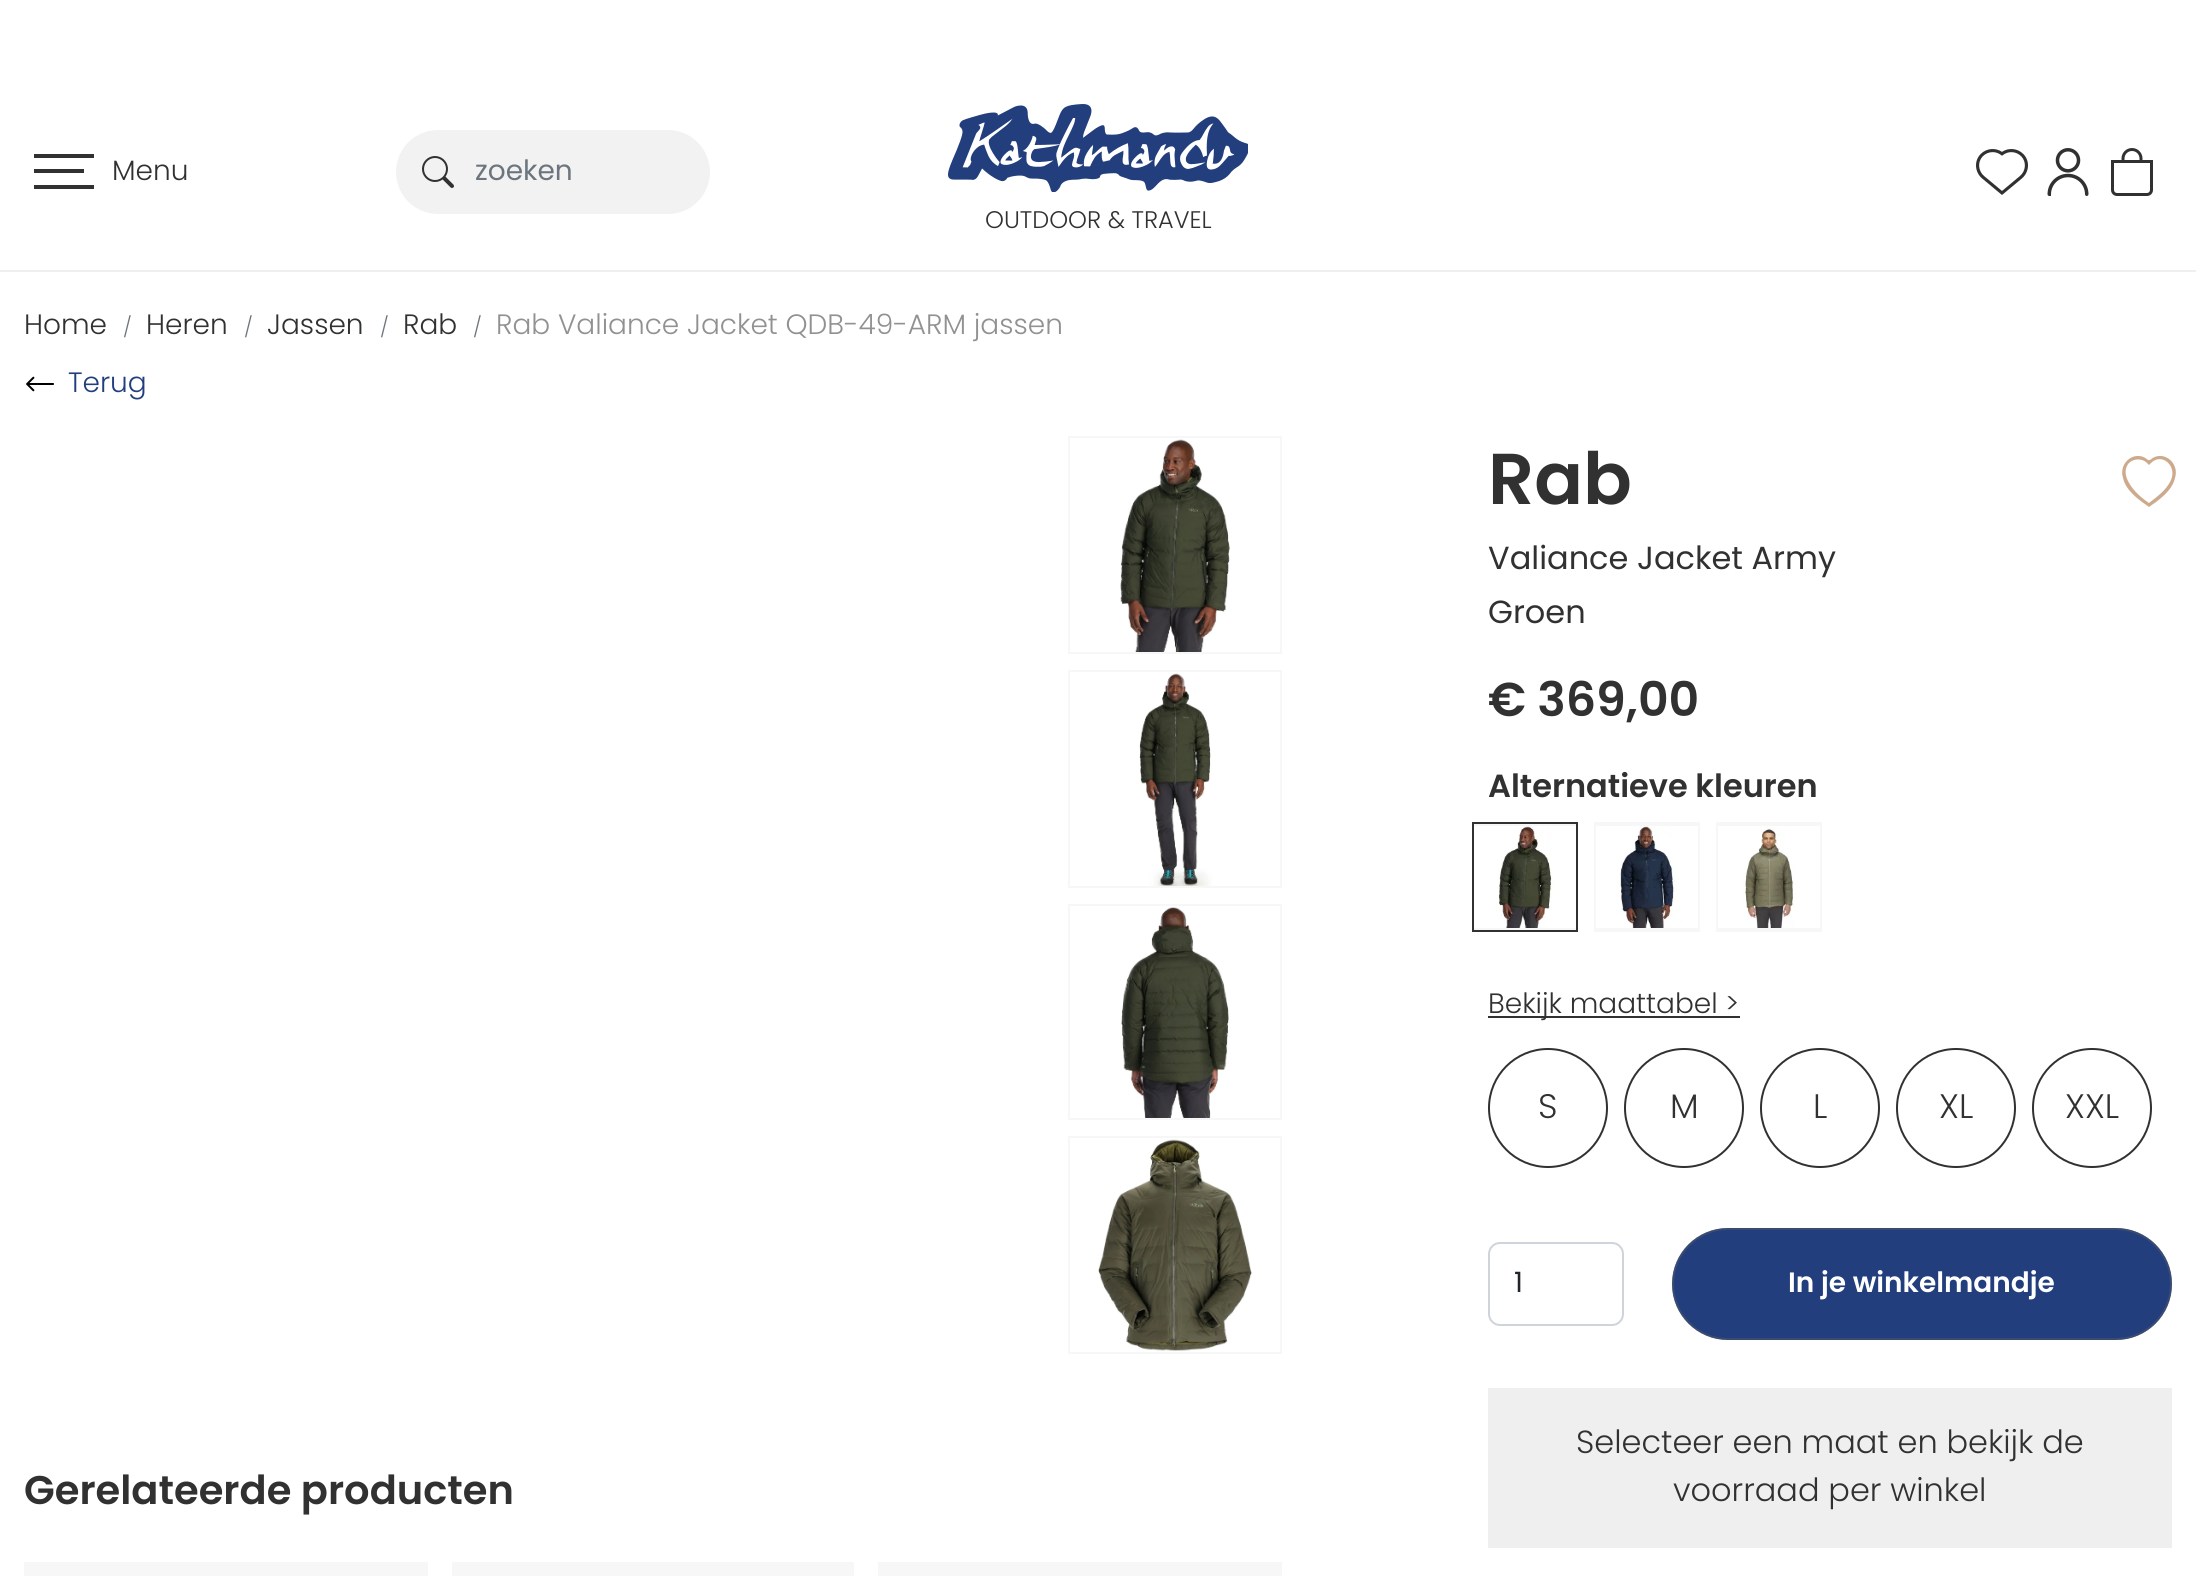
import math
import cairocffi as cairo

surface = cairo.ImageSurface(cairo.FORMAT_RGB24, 2196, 1576)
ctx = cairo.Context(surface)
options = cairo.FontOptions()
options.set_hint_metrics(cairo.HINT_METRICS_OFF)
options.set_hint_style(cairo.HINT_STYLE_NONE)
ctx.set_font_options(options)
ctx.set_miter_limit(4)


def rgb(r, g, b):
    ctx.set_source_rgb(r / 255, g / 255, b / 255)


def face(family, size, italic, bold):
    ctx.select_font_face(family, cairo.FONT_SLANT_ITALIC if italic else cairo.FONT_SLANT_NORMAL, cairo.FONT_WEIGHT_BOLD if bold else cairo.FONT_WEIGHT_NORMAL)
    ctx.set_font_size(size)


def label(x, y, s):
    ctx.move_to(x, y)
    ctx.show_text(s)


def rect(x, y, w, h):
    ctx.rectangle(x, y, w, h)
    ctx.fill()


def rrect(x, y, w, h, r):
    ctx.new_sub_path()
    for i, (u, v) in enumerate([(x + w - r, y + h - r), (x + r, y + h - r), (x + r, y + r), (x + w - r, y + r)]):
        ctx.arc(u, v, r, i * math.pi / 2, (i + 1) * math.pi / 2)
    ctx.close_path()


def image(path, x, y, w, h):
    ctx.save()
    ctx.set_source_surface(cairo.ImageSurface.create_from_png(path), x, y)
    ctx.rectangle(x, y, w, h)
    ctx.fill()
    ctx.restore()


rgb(255, 255, 255)
ctx.paint()
rgb(239, 239, 239)
rect(0, 270, 2196, 2)
rgb(49, 49, 49)
rect(34, 154, 60, 4)
rect(34, 169, 50, 4)
rect(34, 185, 60, 4)
face('Poppins Light', 28, 0, 0)
label(112, 180, 'Menu')
rgb(242, 242, 242)
rrect(396, 130, 314, 84, 42)
ctx.fill()
image('image0.png', 422, 156, 32, 32)
face('Poppins', 28, 0, 0)
rgb(108, 117, 125)
label(475, 180, 'zoeken')
image('image1.png', 1976, 149, 52, 46)
image('image2.png', 2047, 148, 42, 48)
image('image3.png', 2111, 148, 42, 48)
image('image4.png', 948, 104, 300, 88)
face('Poppins Light', 24, 0, 0)
rgb(49, 49, 49)
label(985, 228, 'OUTDOOR & TRAVEL')
face('Poppins Light', 28, 0, 0)
label(24, 334, 'Home')
face('Poppins Light', 20, 0, 0)
rgb(108, 117, 125)
label(123, 334, '/')
face('Poppins Light', 28, 0, 0)
rgb(49, 49, 49)
label(146, 334, 'Heren')
face('Poppins Light', 20, 0, 0)
rgb(108, 117, 125)
label(244, 334, '/')
face('Poppins Light', 28, 0, 0)
rgb(49, 49, 49)
label(267, 334, 'Jassen')
face('Poppins Light', 20, 0, 0)
rgb(108, 117, 125)
label(380, 334, '/')
face('Poppins Light', 28, 0, 0)
rgb(49, 49, 49)
label(403, 334, 'Rab')
face('Poppins Light', 20, 0, 0)
rgb(108, 117, 125)
label(473, 334, '/')
face('Poppins Light', 28, 0, 0)
rgb(145, 145, 145)
label(496, 334, 'Rab Valiance Jacket QDB-49-ARM jassen')
image('image5.png', 26, 376, 28, 16)
rgb(34, 62, 125)
label(68, 392, 'Terug')
rgb(247, 247, 247)
rect(1068, 436, 214, 218)
image('image6.png', 1070, 438, 210, 214)
rect(1068, 670, 214, 218)
image('image7.png', 1070, 672, 210, 214)
rect(1068, 904, 214, 216)
image('image8.png', 1070, 906, 210, 212)
rect(1068, 1136, 214, 218)
image('image9.png', 1070, 1138, 210, 214)
face('Poppins SemiBold', 40, 0, 0)
rgb(49, 49, 49)
label(24, 1504, 'Gerelateerde producten')
rgb(247, 247, 247)
rect(24, 1562, 404, 14)
rect(452, 1562, 402, 14)
rect(878, 1562, 404, 14)
face('Poppins SemiBold', 72, 0, 0)
rgb(49, 49, 49)
label(1488, 504, 'Rab')
face('Poppins', 32, 0, 0)
label(1488, 569, 'Valiance Jacket Army')
label(1488, 623, 'Groen')
rgb(205, 170, 140)
ctx.set_fill_rule(cairo.FILL_RULE_EVEN_ODD)
ctx.new_path()
ctx.move_to(2149, 507)
ctx.curve_to(2139, 500, 2126, 491, 2123, 478)
ctx.curve_to(2118, 462, 2136, 449, 2148, 460)
ctx.line_to(2150, 460)
ctx.curve_to(2162, 449, 2180, 462, 2175, 478)
ctx.curve_to(2172, 491, 2159, 500, 2149, 507)
ctx.close_path()
ctx.move_to(2149, 465)
ctx.line_to(2151, 463)
ctx.curve_to(2161, 453, 2175, 464, 2172, 477)
ctx.curve_to(2169, 488, 2158, 496, 2149, 503)
ctx.curve_to(2137, 495, 2131, 487, 2128, 481)
ctx.curve_to(2125, 475, 2125, 470, 2127, 466)
ctx.curve_to(2130, 459, 2141, 457, 2147, 463)
ctx.close_path()
ctx.fill()
face('Poppins SemiBold', 47.5, 0, 0)
rgb(49, 49, 49)
label(1488, 716, '€ 369,00')
face('Poppins SemiBold', 32, 0, 0)
label(1488, 797, 'Alternatieve kleuren')
rgb(247, 247, 247)
ctx.rectangle(1473, 823, 104, 108)
ctx.fill_preserve()
rgb(49, 49, 49)
ctx.stroke()
image('image10.png', 1474, 826, 102, 102)
rgb(247, 247, 247)
rect(1594, 822, 106, 110)
image('image11.png', 1596, 826, 102, 102)
rect(1716, 822, 106, 110)
image('image12.png', 1718, 826, 102, 102)
rgb(49, 49, 49)
rect(1488, 1016, 252, 2)
face('Poppins Light', 28, 0, 0)
label(1488, 1013, 'Bekijk maattabel >')
ctx.new_path()
ctx.arc(1548, 1108, 59, 0, 2 * math.pi)
ctx.stroke()
face('Poppins Light', 34, 0, 0)
label(1538, 1118, 'S')
ctx.new_path()
ctx.arc(1684, 1108, 59, 0, 2 * math.pi)
ctx.stroke()
label(1670, 1118, 'M')
ctx.new_path()
ctx.arc(1820, 1108, 59, 0, 2 * math.pi)
ctx.stroke()
label(1813, 1118, 'L')
ctx.new_path()
ctx.arc(1956, 1108, 59, 0, 2 * math.pi)
ctx.stroke()
label(1939, 1118, 'XL')
ctx.new_path()
ctx.arc(2092, 1108, 59, 0, 2 * math.pi)
ctx.stroke()
label(2065, 1118, 'XXL')
rrect(1489, 1243, 134, 82, 11)
rgb(206, 212, 218)
ctx.stroke()
face('Poppins', 28, 0, 0)
rgb(33, 37, 41)
label(1514, 1292, '1')
rgb(34, 62, 125)
rrect(1672, 1228, 500, 112, 56)
ctx.fill()
rrect(1673, 1229, 498, 110, 55)
ctx.set_source_rgba(0.38, 0.38, 0.38, 0.4)
ctx.stroke()
face('Poppins SemiBold', 28, 0, 0)
rgb(255, 255, 255)
label(1788, 1292, 'In je winkelmandje')
rgb(239, 239, 239)
rect(1488, 1388, 684, 160)
face('Poppins Light', 32, 0, 0)
rgb(49, 49, 49)
label(1576, 1453, 'Selecteer een maat en bekijk de')
label(1673, 1501, 'voorraad per winkel')
surface.write_to_png('render.png')
